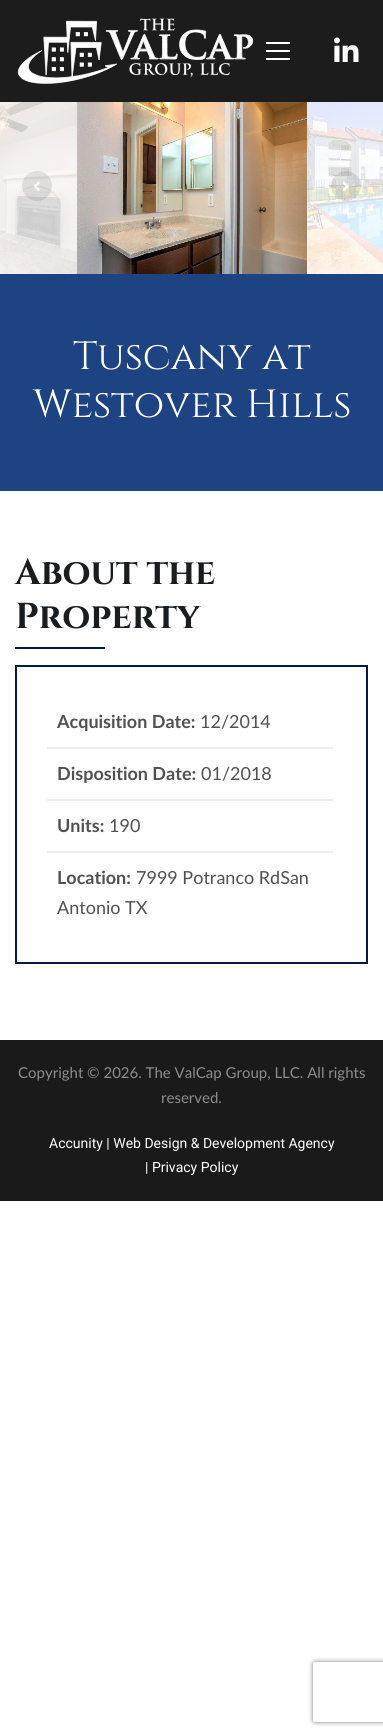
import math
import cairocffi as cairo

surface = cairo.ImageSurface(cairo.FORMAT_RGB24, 383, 1736)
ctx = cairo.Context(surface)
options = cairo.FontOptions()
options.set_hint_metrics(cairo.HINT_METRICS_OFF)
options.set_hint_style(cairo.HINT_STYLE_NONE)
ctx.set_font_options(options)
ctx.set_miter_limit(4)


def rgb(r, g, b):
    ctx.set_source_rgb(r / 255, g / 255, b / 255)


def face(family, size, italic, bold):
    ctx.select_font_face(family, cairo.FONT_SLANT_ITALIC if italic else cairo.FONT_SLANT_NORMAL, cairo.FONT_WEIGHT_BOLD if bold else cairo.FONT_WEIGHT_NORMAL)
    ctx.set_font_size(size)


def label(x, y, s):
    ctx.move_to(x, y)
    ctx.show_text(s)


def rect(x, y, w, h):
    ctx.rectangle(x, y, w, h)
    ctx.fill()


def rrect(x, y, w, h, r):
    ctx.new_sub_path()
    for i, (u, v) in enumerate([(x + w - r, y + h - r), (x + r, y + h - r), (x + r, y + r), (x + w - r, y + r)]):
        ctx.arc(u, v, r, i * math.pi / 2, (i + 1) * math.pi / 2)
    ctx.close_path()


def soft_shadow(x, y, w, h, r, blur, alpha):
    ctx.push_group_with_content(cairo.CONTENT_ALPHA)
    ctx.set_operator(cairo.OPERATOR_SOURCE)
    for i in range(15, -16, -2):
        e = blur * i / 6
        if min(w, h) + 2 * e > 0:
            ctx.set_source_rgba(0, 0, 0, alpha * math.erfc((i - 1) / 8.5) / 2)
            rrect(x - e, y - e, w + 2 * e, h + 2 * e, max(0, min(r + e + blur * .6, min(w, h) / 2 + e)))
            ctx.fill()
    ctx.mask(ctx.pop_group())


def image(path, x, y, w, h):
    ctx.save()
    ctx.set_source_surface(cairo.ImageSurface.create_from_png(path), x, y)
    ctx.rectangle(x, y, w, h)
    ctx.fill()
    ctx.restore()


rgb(255, 255, 255)
ctx.paint()
rgb(28, 28, 28)
rect(0, 0, 383, 102)
image('image0.png', 17, 18, 237, 66)
rgb(255, 255, 255)
rect(266, 50, 24, 2)
rect(266, 42, 24, 2)
rect(266, 58, 24, 2)
image('image1.png', 334, 37, 25, 25)
image('image2.png', 0, 102, 77, 172)
image('image3.png', 77, 102, 230, 172)
image('image4.png', 307, 102, 76, 172)
ctx.set_source_rgba(0, 0, 0, 0.1)
ctx.arc(37, 186, 15, 0, 2 * math.pi)
ctx.fill()
image('image5.png', 33, 181, 7, 10)
ctx.arc(346, 186, 15, 0, 2 * math.pi)
ctx.fill()
image('image6.png', 342, 182, 7, 9)
rgb(29, 67, 130)
rect(0, 274, 383, 217)
face('Cinzel', 39.25, 0, 0)
rgb(255, 255, 255)
label(73, 369, 'Tuscany at')
label(33, 417, 'Westover Hills')
face('Cinzel', 36, 0, 1)
rgb(26, 29, 32)
label(15, 584, 'About the')
label(15, 628, 'Property')
rgb(4, 26, 65)
rect(15, 647, 90, 2)
ctx.rectangle(16, 666, 351, 297)
ctx.stroke()
rgb(236, 236, 236)
rect(47, 747, 286, 2)
face('Lato', 18, 0, 1)
rgb(81, 81, 81)
label(57, 728, 'Acquisition Date:')
face('Lato', 18, 0, 0)
label(200, 728, '12/2014')
rgb(236, 236, 236)
rect(47, 799, 286, 2)
face('Lato', 18, 0, 1)
rgb(81, 81, 81)
label(57, 780, 'Disposition Date:')
face('Lato', 18, 0, 0)
label(201, 780, '01/2018')
rgb(236, 236, 236)
rect(47, 851, 286, 2)
face('Lato', 18, 0, 1)
rgb(81, 81, 81)
label(57, 832, 'Units:')
face('Lato', 18, 0, 0)
label(109, 832, '190')
face('Lato', 18, 0, 1)
label(57, 884, 'Location:')
face('Lato', 18, 0, 0)
label(136, 884, '7999 Potranco RdSan')
label(57, 914, 'Antonio TX')
rgb(27, 26, 26)
rect(0, 1040, 383, 161)
face('Lato', 15, 0, 0)
rgb(141, 141, 141)
label(18, 1078, 'Copyright © 2026. The ValCap Group, LLC. All rights')
label(161, 1103, 'reserved.')
face('Roboto', 14, 0, 0)
rgb(255, 255, 255)
label(49, 1148, 'Accunity | Web Design & Development Agency')
label(145, 1172, '| Privacy Policy')
ctx.save()
ctx.set_fill_rule(cairo.FILL_RULE_EVEN_ODD)
ctx.new_path()
ctx.move_to(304, 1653)
ctx.line_to(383, 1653)
ctx.line_to(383, 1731)
ctx.line_to(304, 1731)
ctx.close_path()
ctx.move_to(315, 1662)
ctx.line_to(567, 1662)
ctx.curve_to(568, 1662, 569, 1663, 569, 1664)
ctx.line_to(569, 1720)
ctx.curve_to(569, 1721, 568, 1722, 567, 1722)
ctx.line_to(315, 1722)
ctx.curve_to(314, 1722, 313, 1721, 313, 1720)
ctx.line_to(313, 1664)
ctx.curve_to(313, 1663, 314, 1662, 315, 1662)
ctx.close_path()
ctx.clip()
rgb(128, 128, 128)
soft_shadow(313, 1662, 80, 60, 2, 2.5, 1)
ctx.restore()
surface.write_to_png('render.png')
